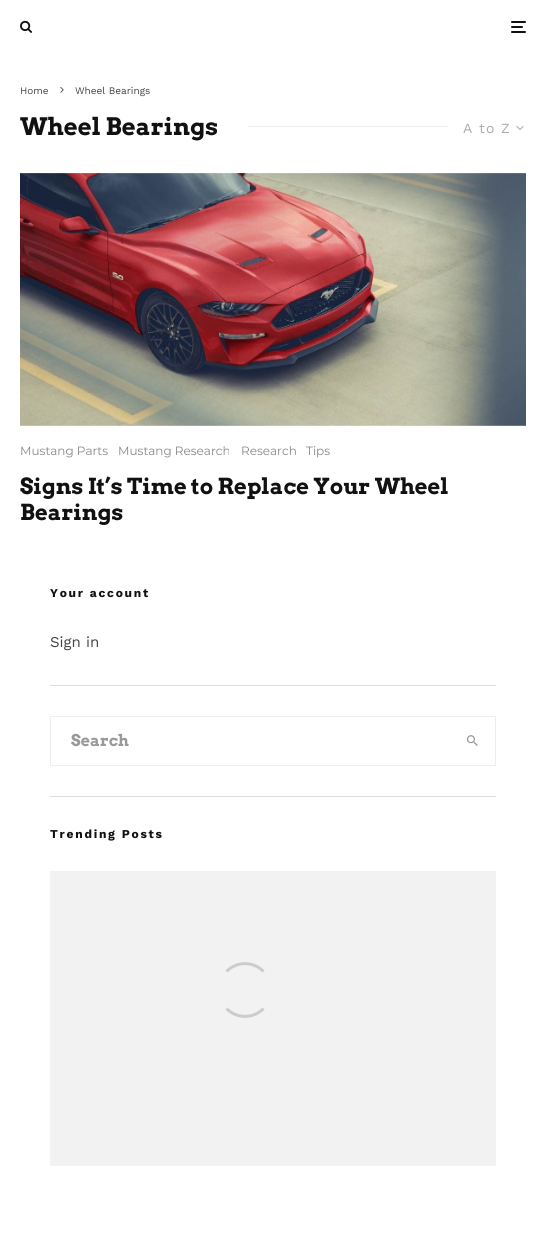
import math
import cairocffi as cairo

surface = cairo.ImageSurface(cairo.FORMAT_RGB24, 546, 1237)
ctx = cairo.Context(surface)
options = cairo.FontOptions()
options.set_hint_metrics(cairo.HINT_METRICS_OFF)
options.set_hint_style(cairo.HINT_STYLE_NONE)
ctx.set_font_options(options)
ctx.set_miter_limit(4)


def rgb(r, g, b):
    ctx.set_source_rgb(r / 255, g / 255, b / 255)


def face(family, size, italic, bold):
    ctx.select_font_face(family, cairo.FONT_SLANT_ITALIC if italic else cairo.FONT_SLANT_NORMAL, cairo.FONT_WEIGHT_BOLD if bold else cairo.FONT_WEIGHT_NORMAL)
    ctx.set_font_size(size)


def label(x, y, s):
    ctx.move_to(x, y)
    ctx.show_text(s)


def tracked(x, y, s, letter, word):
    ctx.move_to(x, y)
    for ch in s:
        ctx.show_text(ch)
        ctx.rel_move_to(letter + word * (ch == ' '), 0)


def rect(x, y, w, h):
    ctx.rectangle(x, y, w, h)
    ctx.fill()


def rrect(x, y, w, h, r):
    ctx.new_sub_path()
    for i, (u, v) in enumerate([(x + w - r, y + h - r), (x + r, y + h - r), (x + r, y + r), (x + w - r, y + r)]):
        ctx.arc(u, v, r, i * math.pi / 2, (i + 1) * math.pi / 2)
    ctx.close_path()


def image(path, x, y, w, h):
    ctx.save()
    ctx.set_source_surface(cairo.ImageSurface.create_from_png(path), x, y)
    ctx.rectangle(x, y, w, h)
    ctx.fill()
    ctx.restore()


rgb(255, 255, 255)
ctx.paint()
image('image0.png', 20, 20, 12, 13)
rgb(17, 17, 17)
rrect(511, 26, 12, 2, 1)
ctx.fill()
rrect(511, 21, 15, 2, 1)
ctx.fill()
rrect(511, 31, 15, 2, 1)
ctx.fill()
face('Work Sans', 10, 0, 0)
rgb(68, 68, 68)
label(20, 94, 'Home')
image('image1.png', 60, 87, 4, 6)
label(75, 94, 'Wheel Bearings')
face('Arvo', 24, 0, 1)
rgb(17, 17, 17)
label(20, 135, 'Wheel Bearings')
rgb(238, 238, 238)
rect(248, 126, 200, 1)
face('Work Sans', 14, 0, 0)
rgb(170, 170, 170)
tracked(463, 133, 'A to Z', 1, 0)
image('image2.png', 516, 126, 8, 4)
image('image3.png', 20, 173, 506, 253)
face('Montserrat', 12, 0, 0)
rgb(136, 136, 136)
label(20, 455, 'Mustang Parts')
label(118, 455, 'Mustang Research')
label(241, 455, 'Research')
label(306, 455, 'Tips')
face('Arvo', 22, 0, 1)
rgb(17, 17, 17)
label(20, 494, 'Signs It’s Time to Replace Your Wheel')
label(20, 520, 'Bearings')
rgb(221, 221, 221)
rect(50, 685, 446, 1)
face('Work Sans', 12, 0, 1)
rgb(17, 17, 17)
tracked(50, 597, 'Your account', 1.75, 0)
face('Work Sans', 15, 0, 0)
rgb(68, 68, 68)
label(50, 647, 'Sign in')
rgb(221, 221, 221)
rect(50, 796, 446, 1)
ctx.rectangle(50.5, 716.5, 445, 49)
rgb(238, 238, 238)
ctx.set_line_width(1)
ctx.stroke()
face('Arvo', 16, 0, 1)
rgb(153, 153, 153)
label(71, 746, 'Search')
image('image4.png', 466, 735, 12, 11)
face('Work Sans', 12, 0, 1)
rgb(17, 17, 17)
tracked(50, 838, 'Trending Posts', 1.75, 0)
rgb(242, 242, 242)
rect(50, 871, 446, 295)
ctx.new_path()
ctx.move_to(226.5, 971.5)
ctx.curve_to(236.5, 961, 253.5, 961, 263.5, 971.5)
ctx.move_to(263.5, 1008.5)
ctx.curve_to(253.5, 1019, 236.5, 1019, 226.5, 1008.5)
rgb(204, 204, 204)
ctx.set_line_width(3)
ctx.stroke()
surface.write_to_png('render.png')
